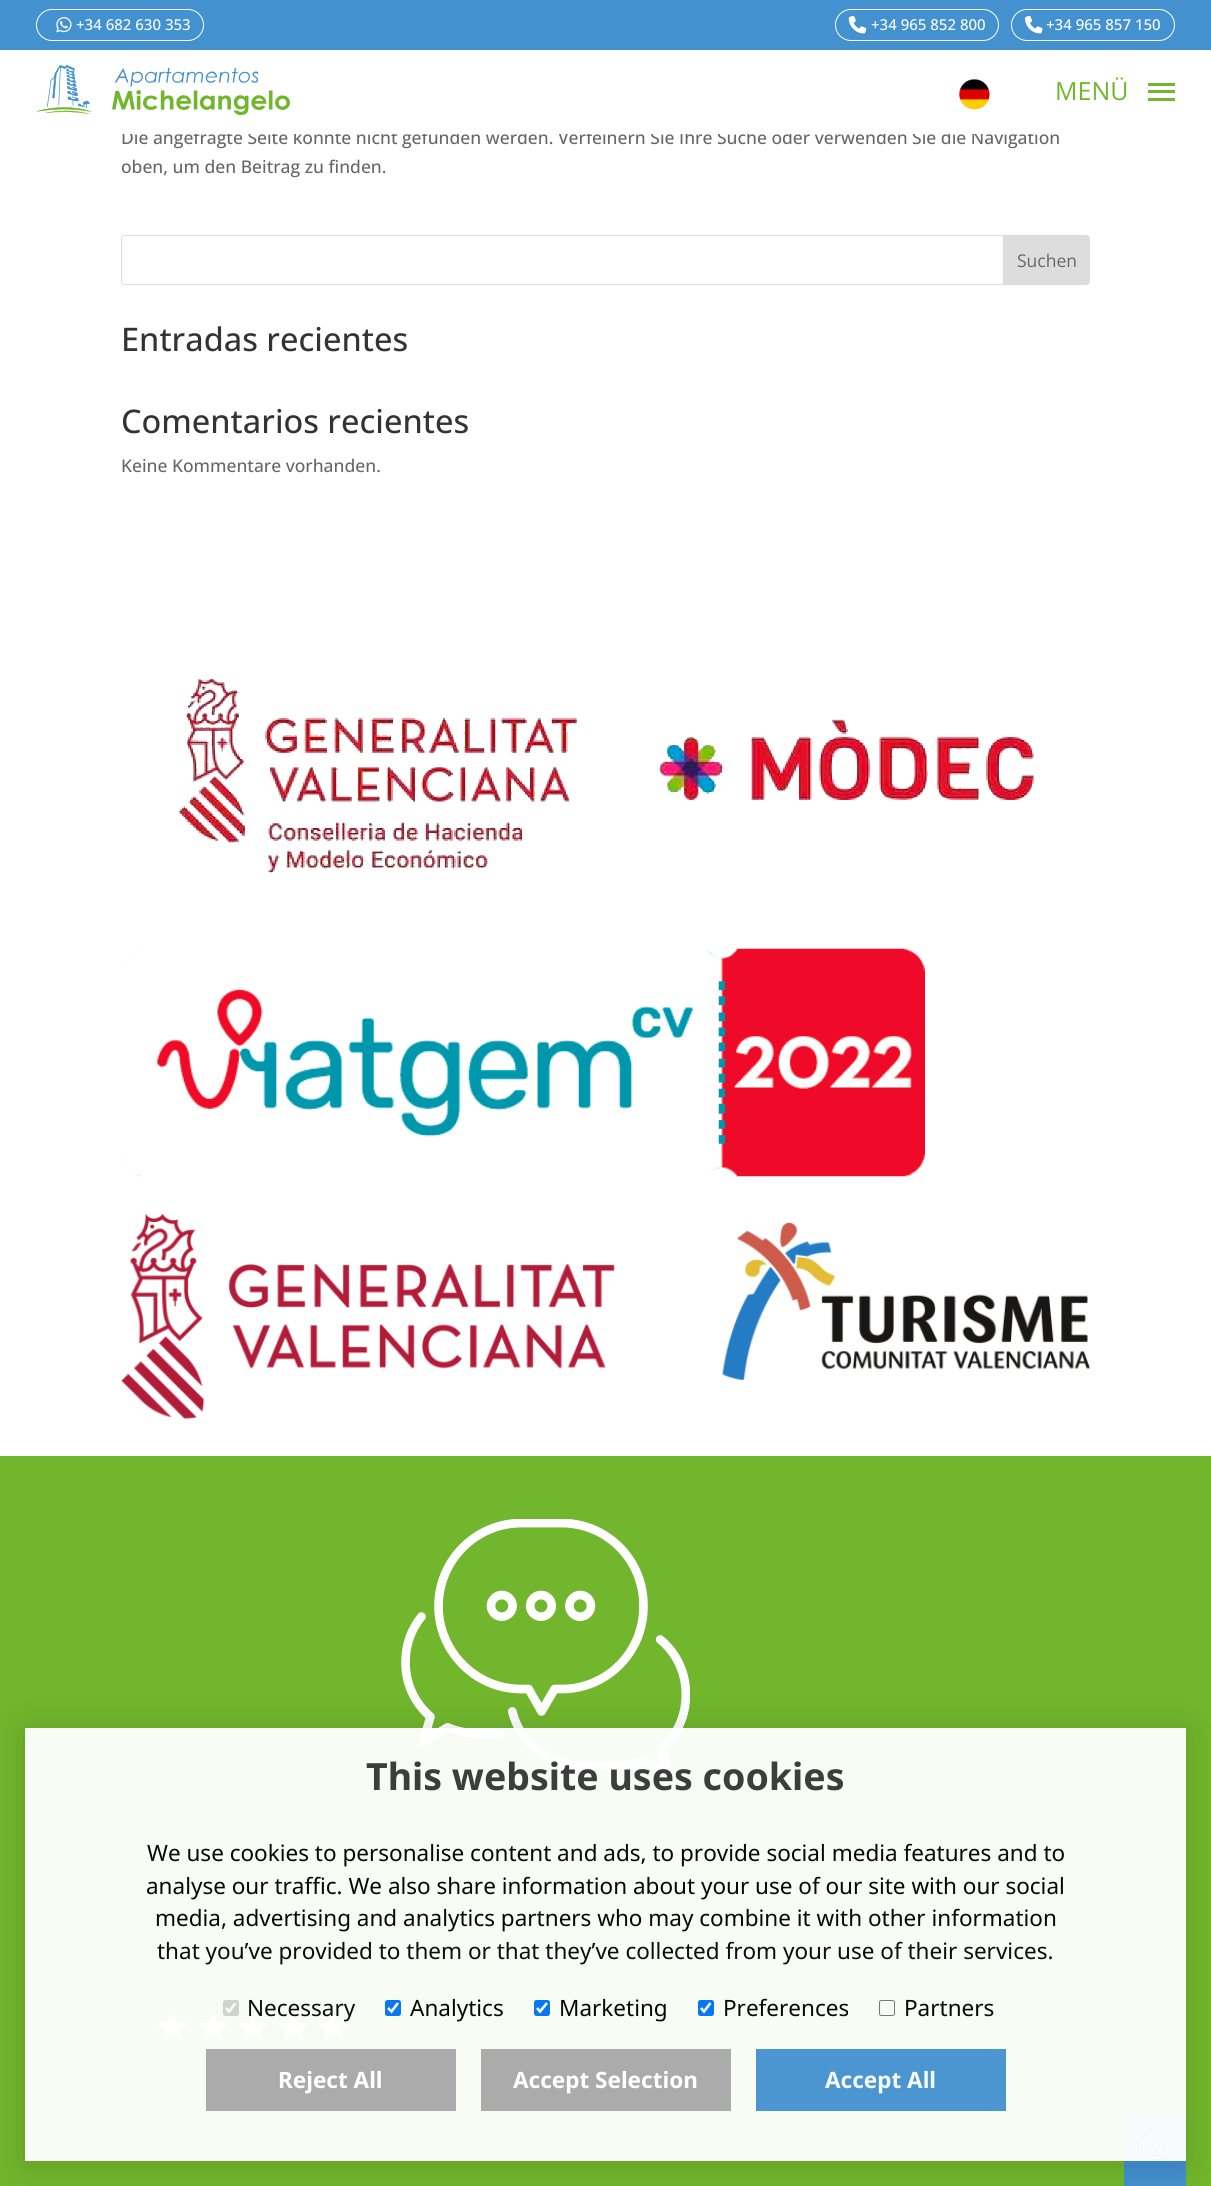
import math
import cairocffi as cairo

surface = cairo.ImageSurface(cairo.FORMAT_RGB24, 1211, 2186)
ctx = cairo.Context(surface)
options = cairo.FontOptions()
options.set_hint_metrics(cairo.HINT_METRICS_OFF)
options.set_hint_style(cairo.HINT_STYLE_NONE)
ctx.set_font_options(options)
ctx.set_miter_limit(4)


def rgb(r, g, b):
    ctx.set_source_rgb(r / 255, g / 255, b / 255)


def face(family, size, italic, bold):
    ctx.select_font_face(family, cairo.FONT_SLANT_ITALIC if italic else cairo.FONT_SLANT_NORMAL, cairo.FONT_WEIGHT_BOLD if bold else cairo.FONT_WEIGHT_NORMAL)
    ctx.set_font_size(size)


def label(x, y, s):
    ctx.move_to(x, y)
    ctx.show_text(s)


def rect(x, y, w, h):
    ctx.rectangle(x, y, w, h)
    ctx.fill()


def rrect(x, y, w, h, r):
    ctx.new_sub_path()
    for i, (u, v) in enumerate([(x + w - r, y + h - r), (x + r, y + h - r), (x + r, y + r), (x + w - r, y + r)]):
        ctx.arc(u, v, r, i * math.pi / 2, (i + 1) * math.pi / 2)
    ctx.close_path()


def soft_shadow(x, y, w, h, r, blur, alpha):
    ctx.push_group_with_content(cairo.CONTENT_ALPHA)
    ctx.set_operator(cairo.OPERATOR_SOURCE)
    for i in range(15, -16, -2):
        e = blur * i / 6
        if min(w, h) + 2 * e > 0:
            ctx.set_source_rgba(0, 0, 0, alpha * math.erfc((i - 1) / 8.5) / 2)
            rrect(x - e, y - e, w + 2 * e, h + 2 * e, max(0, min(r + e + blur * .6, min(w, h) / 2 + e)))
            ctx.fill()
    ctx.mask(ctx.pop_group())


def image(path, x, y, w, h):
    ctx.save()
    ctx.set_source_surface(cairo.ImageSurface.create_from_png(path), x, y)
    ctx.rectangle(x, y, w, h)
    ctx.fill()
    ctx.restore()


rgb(255, 255, 255)
ctx.paint()
face('Open Sans Medium', 17.5, 0, 0)
rgb(102, 102, 102)
label(121, 144, 'Die angefragte Seite konnte nicht gefunden werden. Verfeinern Sie Ihre Suche oder verwenden Sie die Navigation')
rgb(255, 255, 255)
rect(122, 130, 916, 4)
rgb(67, 145, 207)
rect(0, 0, 1211, 50)
rrect(36.5, 9.5, 167, 31, 15.5)
rgb(255, 255, 255)
ctx.set_line_width(1)
ctx.stroke()
image('image0.png', 56, 17, 16, 16)
face('Open Sans Medium', 15, 0, 0)
label(76, 30, '+34 682 630 353')
rrect(835.5, 9.5, 163, 31, 15.5)
ctx.stroke()
image('image1.png', 848, 15, 19, 19)
label(871, 30, '+34 965 852 800')
rrect(1011.5, 9.5, 163, 31, 15.5)
ctx.stroke()
image('image2.png', 1025, 15, 18, 19)
label(1046, 30, '+34 965 857 150')
image('image3.png', 36, 65, 254, 50)
image('image4.png', 959, 79, 31, 31)
face('Open Sans', 25, 0, 0)
rgb(113, 182, 44)
label(1055, 100, 'MENÜ')
rect(1148, 83, 27, 3)
rect(1148, 90, 27, 3)
rect(1148, 98, 27, 3)
rect(0, 1456, 1211, 730)
rgb(67, 145, 207)
ctx.new_path()
ctx.move_to(1130, 2115)
ctx.line_to(1180, 2115)
ctx.curve_to(1183.5, 2115, 1186, 2117.5, 1186, 2121)
ctx.line_to(1186, 2186)
ctx.line_to(1124, 2186)
ctx.line_to(1124, 2121)
ctx.curve_to(1124, 2117.5, 1126.5, 2115, 1130, 2115)
ctx.close_path()
ctx.fill()
image('image5.png', 1143, 2134, 25, 25)
face('Open Sans Medium', 17.5, 0, 0)
rgb(102, 102, 102)
label(121, 173, 'oben, um den Beitrag zu finden.')
rrect(121.5, 235.5, 968, 49, 3.5)
rgb(221, 221, 221)
ctx.stroke()
ctx.new_path()
ctx.move_to(1003.5, 235.5)
ctx.line_to(1086, 235.5)
ctx.curve_to(1088, 235.5, 1089.5, 237, 1089.5, 239)
ctx.line_to(1089.5, 281)
ctx.curve_to(1089.5, 283, 1088, 284.5, 1086, 284.5)
ctx.line_to(1003.5, 284.5)
ctx.close_path()
ctx.fill_preserve()
ctx.stroke()
face('Open Sans', 17.5, 0, 0)
rgb(102, 102, 102)
label(1017, 267, 'Suchen')
face('Open Sans Medium', 32.5, 0, 0)
rgb(51, 51, 51)
label(121, 351, 'Entradas recientes')
label(121, 433, 'Comentarios recientes')
face('Open Sans Medium', 17.5, 0, 0)
rgb(102, 102, 102)
label(121, 472, 'Keine Kommentare vorhanden.')
image('image6.png', 178, 678, 856, 195)
image('image7.png', 121, 948, 804, 229)
image('image8.png', 121, 1213, 969, 206)
image('image9.png', 401, 1519, 289, 260)
image('image10.png', 158, 2014, 191, 26)
ctx.save()
ctx.set_fill_rule(cairo.FILL_RULE_EVEN_ODD)
ctx.new_path()
ctx.move_to(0, 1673)
ctx.line_to(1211, 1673)
ctx.line_to(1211, 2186)
ctx.line_to(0, 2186)
ctx.close_path()
ctx.move_to(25, 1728)
ctx.line_to(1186, 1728)
ctx.line_to(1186, 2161)
ctx.line_to(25, 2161)
ctx.close_path()
ctx.clip()
rgb(0, 0, 0)
soft_shadow(25, 1731, 1161, 434, 0, 19, 0.15)
ctx.restore()
ctx.set_source_rgba(1, 1, 1, 0.95)
rect(25, 1728, 1161, 433)
face('Noto Sans', 37.5, 0, 1)
rgb(61, 61, 61)
label(366, 1790, 'This website uses cookies')
face('Noto Sans', 22.5, 0, 0)
rgb(6, 9, 2)
label(147, 1861, 'We use cookies to personalise content and ads, to provide social media features and to')
label(146, 1894, 'analyse our traffic. We also share information about your use of our site with our social')
label(155, 1926, 'media, advertising and analytics partners who may combine it with other information')
rgb(12, 13, 12)
label(157, 1959, 'that you’ve provided to them or that they’ve collected from your use of their services.')
rgb(209, 212, 205)
rrect(223, 2000, 16, 16, 2.5)
ctx.fill()
ctx.new_path()
ctx.move_to(226, 2008)
ctx.line_to(229, 2011.5)
ctx.line_to(235.5, 2003)
rgb(248, 251, 244)
ctx.set_line_width(2.6)
ctx.stroke()
rgb(12, 13, 12)
label(247, 2016, 'Necessary')
rgb(6, 120, 244)
rrect(385, 2000, 16, 16, 2.5)
ctx.fill()
ctx.new_path()
ctx.move_to(388, 2008)
ctx.line_to(391.5, 2011.5)
ctx.line_to(398, 2003)
rgb(248, 251, 244)
ctx.stroke()
rgb(6, 9, 2)
label(410, 2016, 'Analytics')
rgb(6, 120, 244)
rrect(534, 2000, 16, 16, 2.5)
ctx.fill()
ctx.new_path()
ctx.move_to(537, 2008)
ctx.line_to(540, 2011.5)
ctx.line_to(547, 2003)
rgb(248, 251, 244)
ctx.stroke()
rgb(6, 9, 2)
label(559, 2016, 'Marketing')
rgb(6, 120, 244)
rrect(698, 2000, 16, 16, 2.5)
ctx.fill()
ctx.new_path()
ctx.move_to(701, 2008)
ctx.line_to(704, 2011.5)
ctx.line_to(710.5, 2003)
rgb(248, 251, 244)
ctx.stroke()
rgb(6, 9, 2)
label(723, 2016, 'Preferences')
rrect(879.5, 2000.5, 15, 15, 2)
rgb(118, 121, 114)
ctx.set_line_width(1)
ctx.stroke()
rgb(6, 9, 2)
label(904, 2016, 'Partners')
ctx.set_source_rgba(0.655, 0.655, 0.655, 0.95)
rect(206, 2049, 250, 62)
face('Noto Sans', 22.5, 0, 1)
rgb(255, 255, 255)
label(278, 2088, 'Reject All')
ctx.set_source_rgba(0.655, 0.655, 0.655, 0.95)
rect(481, 2049, 250, 62)
rgb(255, 255, 255)
label(513, 2088, 'Accept Selection')
ctx.set_source_rgba(0.263, 0.569, 0.812, 0.95)
rect(756, 2049, 250, 62)
rgb(246, 250, 253)
label(825, 2088, 'Accept All')
surface.write_to_png('render.png')
